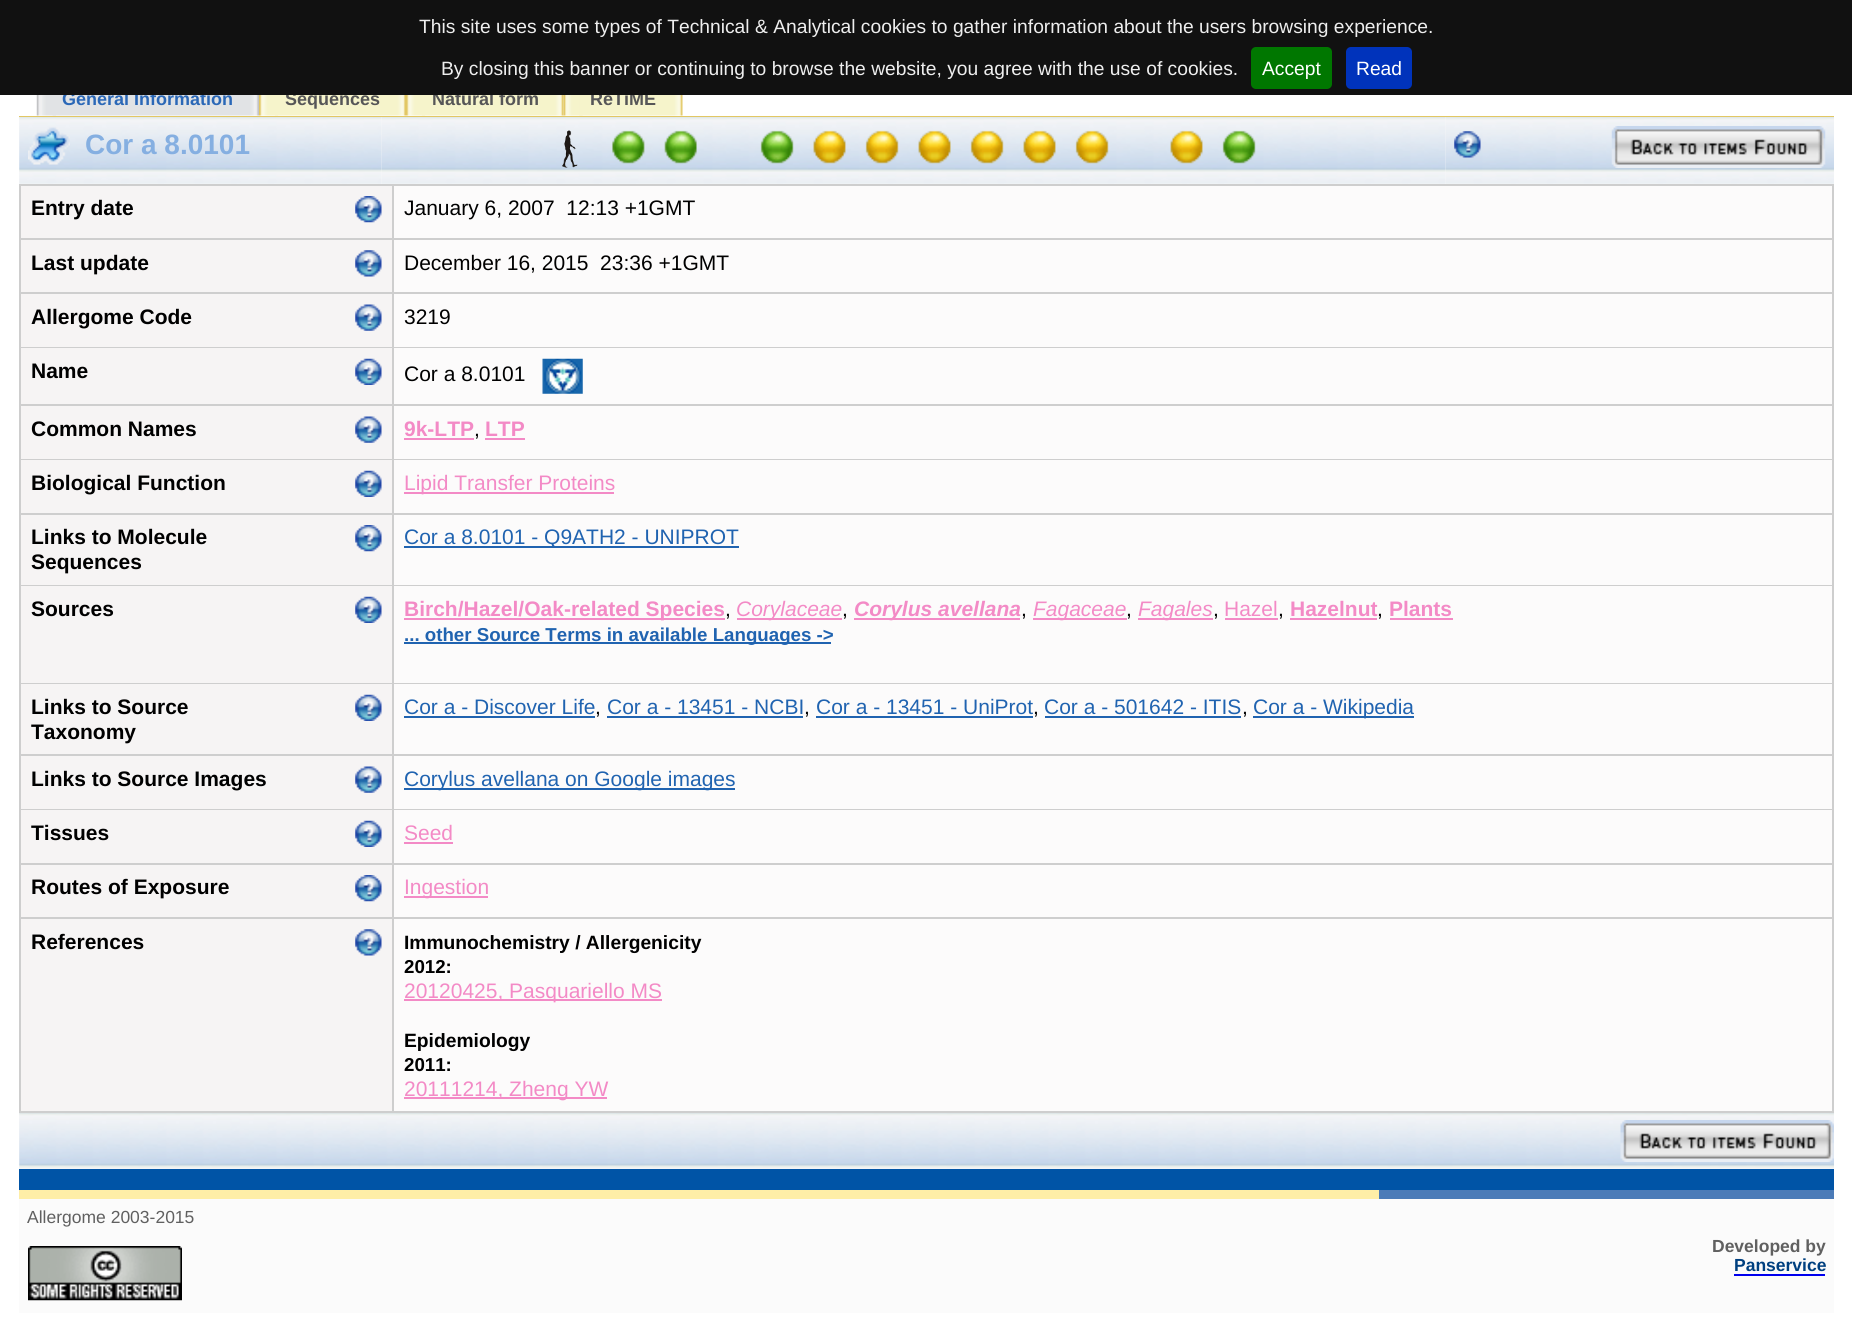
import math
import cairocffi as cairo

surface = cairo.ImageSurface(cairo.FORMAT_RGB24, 1852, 1333)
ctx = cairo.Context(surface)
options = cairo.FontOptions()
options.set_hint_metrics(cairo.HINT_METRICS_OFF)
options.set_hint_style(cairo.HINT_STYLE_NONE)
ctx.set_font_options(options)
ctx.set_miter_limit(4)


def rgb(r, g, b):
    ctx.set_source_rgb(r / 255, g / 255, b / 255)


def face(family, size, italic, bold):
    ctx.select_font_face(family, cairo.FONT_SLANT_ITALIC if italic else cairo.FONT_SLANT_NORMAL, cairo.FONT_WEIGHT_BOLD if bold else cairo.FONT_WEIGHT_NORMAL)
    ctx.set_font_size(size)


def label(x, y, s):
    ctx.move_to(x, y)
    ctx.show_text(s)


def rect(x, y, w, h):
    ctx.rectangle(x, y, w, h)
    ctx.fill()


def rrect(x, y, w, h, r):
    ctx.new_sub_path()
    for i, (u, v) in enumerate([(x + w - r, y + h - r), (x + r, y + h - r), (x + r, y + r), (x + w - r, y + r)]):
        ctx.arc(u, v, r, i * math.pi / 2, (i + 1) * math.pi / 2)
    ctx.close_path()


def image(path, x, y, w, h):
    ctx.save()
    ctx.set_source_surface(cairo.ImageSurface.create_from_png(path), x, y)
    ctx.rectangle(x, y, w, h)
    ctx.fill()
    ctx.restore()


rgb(255, 255, 255)
ctx.paint()
image('image0.png', 36, 95, 20, 21)
image('image1.png', 52, 95, 207, 21)
face('Liberation Sans', 18, 0, 1)
rgb(43, 104, 183)
label(62, 105, 'General Information')
image('image2.png', 259, 95, 20, 21)
image('image3.png', 274, 95, 132, 21)
rgb(86, 86, 87)
label(285, 105, 'Sequences')
image('image4.png', 406, 95, 20, 21)
image('image5.png', 421, 95, 143, 21)
label(432, 105, 'Natural form')
image('image6.png', 563, 95, 20, 21)
image('image7.png', 579, 95, 104, 21)
label(590, 105, 'ReTiME')
rgb(17, 17, 17)
rect(0, 0, 1852, 95)
face('Liberation Sans', 19.25, 0, 0)
rgb(238, 238, 238)
label(419, 33, 'This site uses some types of Technical & Analytical cookies to gather information about the users browsing experience.')
label(441, 75, 'By closing this banner or continuing to browse the website, you agree with the use of cookies.')
rgb(0, 119, 0)
rrect(1251, 47, 81, 42, 5)
ctx.fill()
rgb(255, 255, 255)
label(1262, 75, 'Accept')
rgb(0, 51, 187)
rrect(1346, 47, 66, 42, 5)
ctx.fill()
rgb(255, 255, 255)
label(1356, 75, 'Read')
rgb(226, 199, 99)
rect(19, 116, 1815, 1)
rgb(252, 251, 251)
rect(19, 117, 1815, 1052)
image('image8.png', 19, 117, 363, 67)
image('image9.png', 28, 127, 42, 38)
face('Liberation Sans', 28, 0, 1)
rgb(133, 175, 225)
label(85, 154, 'Cor a 8.0101')
image('image10.png', 381, 117, 1065, 67)
image('image11.png', 562, 130, 16, 38)
image('image12.png', 612, 130, 33, 34)
image('image13.png', 664, 130, 33, 34)
image('image14.png', 760, 130, 34, 34)
image('image15.png', 813, 130, 33, 34)
image('image16.png', 865, 130, 34, 34)
image('image17.png', 918, 130, 33, 34)
image('image18.png', 970, 130, 34, 34)
image('image19.png', 1023, 130, 33, 34)
image('image20.png', 1075, 130, 34, 34)
image('image21.png', 1170, 130, 33, 34)
image('image22.png', 1222, 130, 34, 34)
image('image23.png', 1445, 117, 389, 67)
image('image24.png', 1454, 131, 27, 27)
image('image25.png', 1611, 126, 215, 42)
rgb(206, 206, 206)
rect(19, 184, 1815, 929)
rgb(246, 244, 244)
rect(21, 186, 371, 52)
face('Liberation Sans', 21, 0, 1)
rgb(0, 0, 0)
label(31, 215, 'Entry date')
image('image26.png', 355, 196, 27, 27)
rgb(252, 251, 251)
rect(394, 186, 1438, 52)
face('Liberation Sans', 21, 0, 0)
rgb(0, 0, 0)
label(404, 215, 'January 6, 2007  12:13 +1GMT')
rgb(246, 244, 244)
rect(21, 240, 371, 52)
face('Liberation Sans', 21, 0, 1)
rgb(0, 0, 0)
label(31, 270, 'Last update')
image('image27.png', 355, 250, 27, 27)
rgb(252, 251, 251)
rect(394, 240, 1438, 52)
face('Liberation Sans', 21, 0, 0)
rgb(0, 0, 0)
label(404, 270, 'December 16, 2015  23:36 +1GMT')
rgb(246, 244, 244)
rect(21, 294, 371, 53)
face('Liberation Sans', 21, 0, 1)
rgb(0, 0, 0)
label(31, 324, 'Allergome Code')
image('image28.png', 355, 304, 27, 27)
rgb(252, 251, 251)
rect(394, 294, 1438, 53)
face('Liberation Sans', 21, 0, 0)
rgb(0, 0, 0)
label(404, 324, '3219')
rgb(246, 244, 244)
rect(21, 348, 371, 56)
face('Liberation Sans', 21, 0, 1)
rgb(0, 0, 0)
label(31, 378, 'Name')
image('image29.png', 355, 358, 27, 27)
rgb(252, 251, 251)
rect(394, 348, 1438, 56)
face('Liberation Sans', 21, 0, 0)
rgb(0, 0, 0)
label(404, 381, 'Cor a 8.0101')
image('image30.png', 542, 358, 41, 36)
rgb(246, 244, 244)
rect(21, 406, 371, 53)
face('Liberation Sans', 21, 0, 1)
rgb(0, 0, 0)
label(31, 436, 'Common Names')
image('image28.png', 355, 416, 27, 27)
rgb(252, 251, 251)
rect(394, 406, 1438, 53)
rgb(243, 138, 198)
label(404, 436, '9k-LTP')
rect(404, 438, 70, 2)
face('Liberation Sans', 21, 0, 0)
rgb(0, 0, 0)
label(474, 436, ',')
face('Liberation Sans', 21, 0, 1)
rgb(243, 138, 198)
label(485, 436, 'LTP')
rect(485, 438, 40, 2)
rgb(246, 244, 244)
rect(21, 460, 371, 53)
rgb(0, 0, 0)
label(31, 490, 'Biological Function')
image('image29.png', 355, 470, 27, 27)
rgb(252, 251, 251)
rect(394, 460, 1438, 53)
rgb(243, 138, 198)
rect(404, 492, 210, 2)
face('Liberation Sans', 21, 0, 0)
label(404, 490, 'Lipid Transfer Proteins')
rgb(246, 244, 244)
rect(21, 515, 371, 70)
face('Liberation Sans', 21, 0, 1)
rgb(0, 0, 0)
label(31, 544, 'Links to Molecule')
image('image26.png', 355, 525, 27, 27)
label(31, 569, 'Sequences')
rgb(252, 251, 251)
rect(394, 515, 1438, 70)
rgb(32, 99, 176)
rect(404, 546, 335, 2)
face('Liberation Sans', 21, 0, 0)
label(404, 544, 'Cor a 8.0101 - Q9ATH2 - UNIPROT')
rgb(246, 244, 244)
rect(21, 586, 371, 97)
face('Liberation Sans', 21, 0, 1)
rgb(0, 0, 0)
label(31, 616, 'Sources')
image('image29.png', 355, 596, 27, 27)
rgb(252, 251, 251)
rect(394, 586, 1438, 97)
rgb(243, 138, 198)
rect(404, 618, 321, 2)
label(404, 616, 'Birch/Hazel/Oak-related Species')
face('Liberation Sans', 21, 0, 0)
rgb(0, 0, 0)
label(725, 616, ',')
rgb(243, 138, 198)
rect(737, 618, 105, 2)
face('Liberation Sans', 21, 1, 0)
label(736, 616, 'Corylaceae')
face('Liberation Sans', 21, 0, 0)
rgb(0, 0, 0)
label(842, 616, ',')
rgb(243, 138, 198)
rect(854, 618, 166, 2)
face('Liberation Sans', 21, 1, 1)
label(854, 616, 'Corylus avellana')
face('Liberation Sans', 21, 0, 0)
rgb(0, 0, 0)
label(1021, 616, ',')
rgb(243, 138, 198)
rect(1033, 618, 94, 2)
face('Liberation Sans', 21, 1, 0)
label(1033, 616, 'Fagaceae')
face('Liberation Sans', 21, 0, 0)
rgb(0, 0, 0)
label(1126, 616, ',')
rgb(243, 138, 198)
rect(1138, 618, 75, 2)
face('Liberation Sans', 21, 1, 0)
label(1138, 616, 'Fagales')
face('Liberation Sans', 21, 0, 0)
rgb(0, 0, 0)
label(1213, 616, ',')
rgb(243, 138, 198)
label(1224, 616, 'Hazel')
rect(1225, 618, 53, 2)
rgb(0, 0, 0)
label(1278, 616, ',')
face('Liberation Sans', 21, 0, 1)
rgb(243, 138, 198)
label(1290, 616, 'Hazelnut')
rect(1290, 618, 87, 2)
face('Liberation Sans', 21, 0, 0)
rgb(0, 0, 0)
label(1377, 616, ',')
face('Liberation Sans', 21, 0, 1)
rgb(243, 138, 198)
label(1389, 616, 'Plants')
rect(1390, 618, 63, 2)
rgb(32, 99, 176)
rect(404, 642, 427, 2)
face('Liberation Sans', 18.7, 0, 1)
label(404, 641, '... other Source Terms in available Languages ->')
rgb(246, 244, 244)
rect(21, 684, 371, 70)
face('Liberation Sans', 21, 0, 1)
rgb(0, 0, 0)
label(31, 714, 'Links to Source')
image('image29.png', 355, 694, 27, 27)
label(31, 739, 'Taxonomy')
rgb(252, 251, 251)
rect(394, 684, 1438, 70)
face('Liberation Sans', 21, 0, 0)
rgb(32, 99, 176)
label(404, 714, 'Cor a - Discover Life')
rect(404, 716, 191, 2)
rgb(0, 0, 0)
label(595, 714, ',')
rgb(32, 99, 176)
label(607, 714, 'Cor a - 13451 - NCBI')
rect(607, 716, 196, 2)
rgb(0, 0, 0)
label(804, 714, ',')
rgb(32, 99, 176)
label(816, 714, 'Cor a - 13451 - UniProt')
rect(816, 716, 217, 2)
rgb(0, 0, 0)
label(1033, 714, ',')
rgb(32, 99, 176)
label(1044, 714, 'Cor a - 501642 - ITIS')
rect(1045, 716, 196, 2)
rgb(0, 0, 0)
label(1242, 714, ',')
rgb(32, 99, 176)
rect(1253, 716, 161, 2)
label(1253, 714, 'Cor a - Wikipedia')
rgb(246, 244, 244)
rect(21, 756, 371, 53)
face('Liberation Sans', 21, 0, 1)
rgb(0, 0, 0)
label(31, 786, 'Links to Source Images')
image('image28.png', 355, 766, 27, 27)
rgb(252, 251, 251)
rect(394, 756, 1438, 53)
rgb(32, 99, 176)
rect(404, 788, 331, 2)
face('Liberation Sans', 21, 0, 0)
label(404, 786, 'Corylus avellana on Google images')
rgb(246, 244, 244)
rect(21, 810, 371, 53)
face('Liberation Sans', 21, 0, 1)
rgb(0, 0, 0)
label(31, 840, 'Tissues')
image('image29.png', 355, 820, 27, 27)
rgb(252, 251, 251)
rect(394, 810, 1438, 53)
face('Liberation Sans', 21, 0, 0)
rgb(243, 138, 198)
label(404, 840, 'Seed')
rect(404, 842, 49, 2)
rgb(246, 244, 244)
rect(21, 865, 371, 52)
face('Liberation Sans', 21, 0, 1)
rgb(0, 0, 0)
label(31, 894, 'Routes of Exposure')
image('image26.png', 355, 875, 27, 27)
rgb(252, 251, 251)
rect(394, 865, 1438, 52)
rgb(243, 138, 198)
rect(404, 896, 84, 2)
face('Liberation Sans', 21, 0, 0)
label(404, 894, 'Ingestion')
rgb(246, 244, 244)
rect(21, 919, 371, 192)
face('Liberation Sans', 21, 0, 1)
rgb(0, 0, 0)
label(31, 949, 'References')
image('image27.png', 355, 929, 27, 27)
rgb(252, 251, 251)
rect(394, 919, 1438, 192)
face('Liberation Sans', 19.25, 0, 1)
rgb(0, 0, 0)
label(404, 949, 'Immunochemistry / Allergenicity')
face('Liberation Sans', 18.7, 0, 1)
label(404, 973, '2012:')
rgb(243, 138, 198)
rect(404, 999, 258, 2)
face('Liberation Sans', 21, 0, 0)
label(404, 998, '20120425, Pasquariello MS')
face('Liberation Sans', 19.25, 0, 1)
rgb(0, 0, 0)
label(404, 1047, 'Epidemiology')
face('Liberation Sans', 18.7, 0, 1)
label(404, 1071, '2011:')
rgb(243, 138, 198)
rect(404, 1097, 203, 2)
face('Liberation Sans', 21, 0, 0)
label(404, 1096, '20111214, Zheng YW')
image('image31.png', 19, 1113, 1815, 56)
image('image32.png', 1620, 1120, 214, 42)
rgb(0, 84, 166)
rect(19, 1169, 1815, 21)
rgb(251, 251, 251)
rect(19, 1199, 1815, 114)
rgb(254, 238, 167)
rect(19, 1190, 1360, 9)
face('Liberation Sans', 17.5, 0, 0)
rgb(96, 96, 96)
label(27, 1223, 'Allergome 2003-2015')
image('image33.png', 28, 1246, 154, 55)
rgb(75, 123, 184)
rect(1379, 1190, 455, 9)
face('Liberation Sans', 17.5, 0, 1)
rgb(96, 96, 96)
label(1712, 1252, 'Developed by')
rgb(0, 64, 128)
label(1734, 1271, 'Panservice')
rgb(0, 0, 238)
rect(1734, 1274, 91, 2)
surface.write_to_png('render.png')
